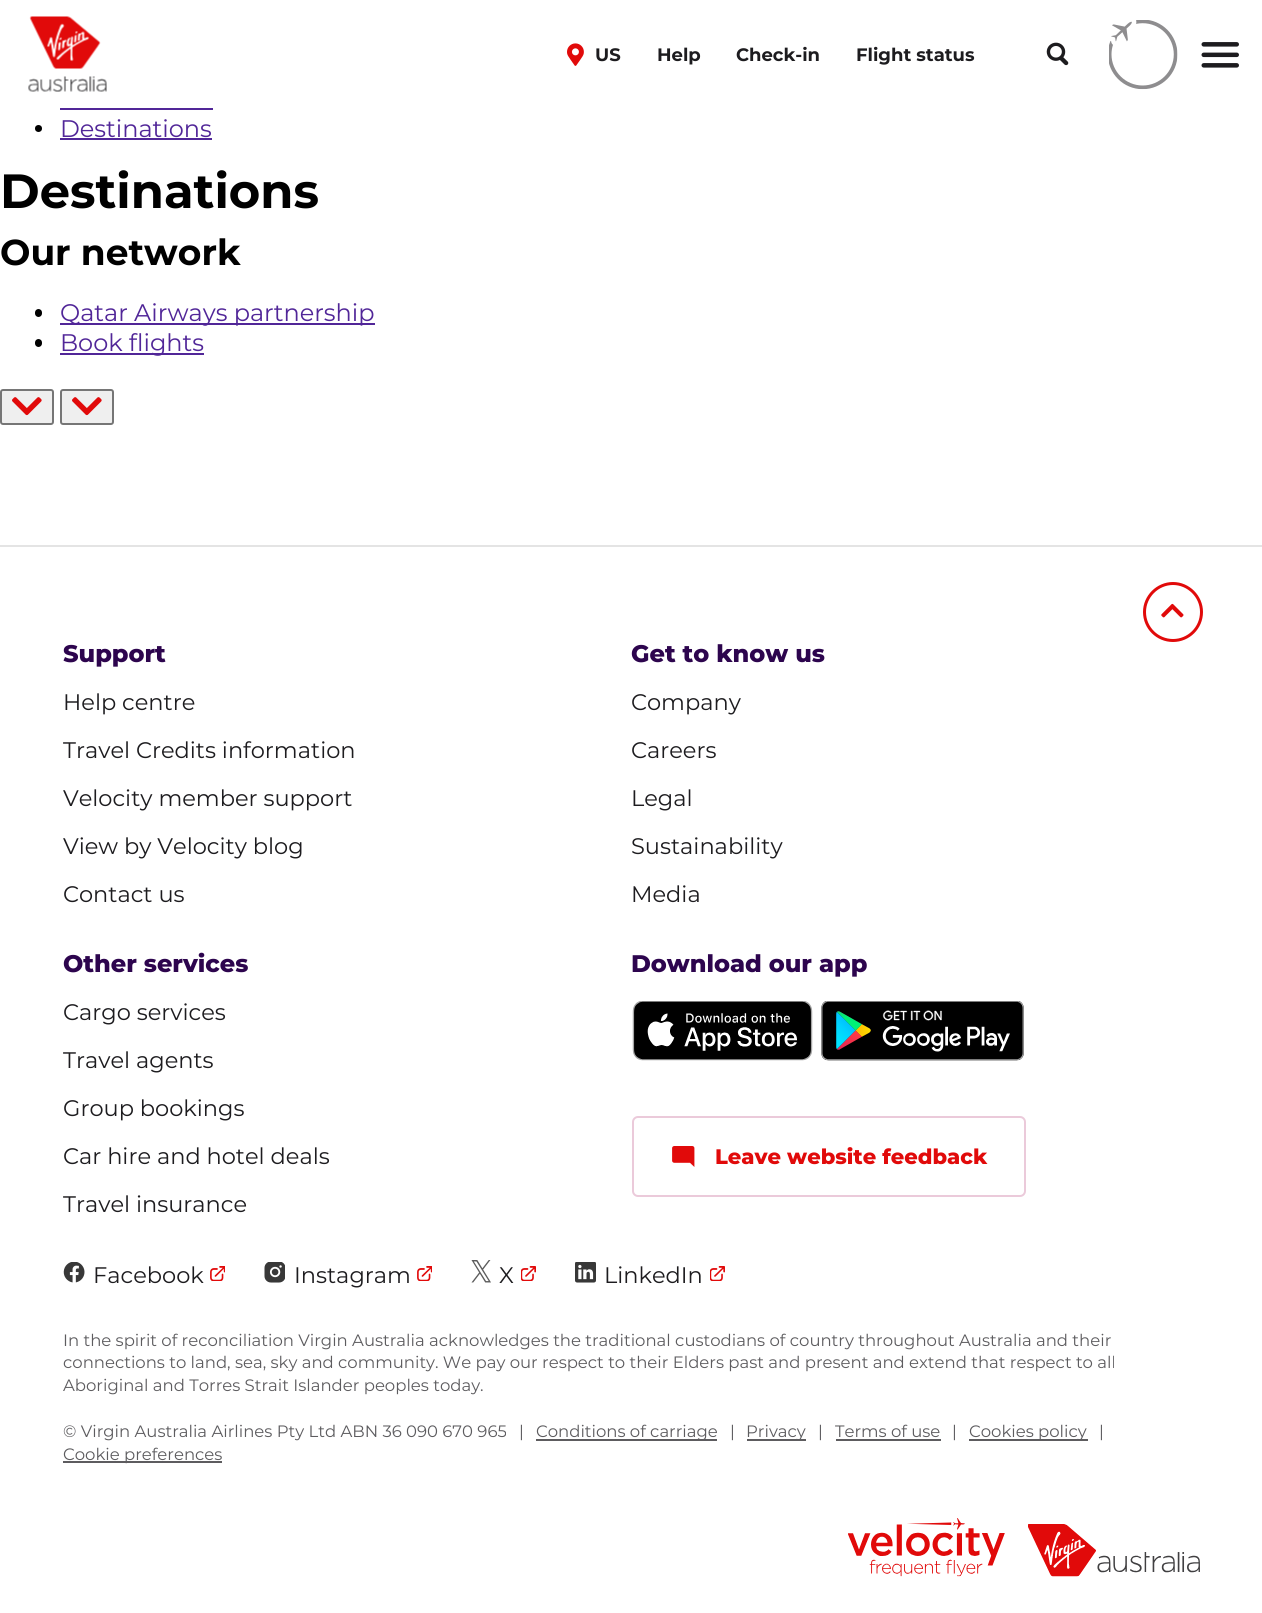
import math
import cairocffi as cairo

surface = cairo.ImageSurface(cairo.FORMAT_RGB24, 1262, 1613)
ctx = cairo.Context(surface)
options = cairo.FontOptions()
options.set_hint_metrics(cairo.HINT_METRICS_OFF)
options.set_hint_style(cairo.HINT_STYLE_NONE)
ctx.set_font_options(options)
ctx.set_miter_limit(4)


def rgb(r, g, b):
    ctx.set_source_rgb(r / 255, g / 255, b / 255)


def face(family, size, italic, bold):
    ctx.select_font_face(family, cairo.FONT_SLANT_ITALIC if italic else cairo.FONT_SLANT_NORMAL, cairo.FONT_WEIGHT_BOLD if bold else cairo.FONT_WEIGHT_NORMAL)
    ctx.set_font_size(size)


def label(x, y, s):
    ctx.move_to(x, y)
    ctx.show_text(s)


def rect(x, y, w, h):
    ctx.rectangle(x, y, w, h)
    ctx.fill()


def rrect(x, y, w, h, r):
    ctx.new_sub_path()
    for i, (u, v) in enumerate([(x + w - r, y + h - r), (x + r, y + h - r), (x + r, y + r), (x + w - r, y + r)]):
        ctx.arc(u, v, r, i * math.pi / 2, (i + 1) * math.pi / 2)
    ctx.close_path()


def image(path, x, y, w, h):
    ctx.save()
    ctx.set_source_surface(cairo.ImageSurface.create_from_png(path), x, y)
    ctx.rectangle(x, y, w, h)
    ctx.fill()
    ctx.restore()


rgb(255, 255, 255)
ctx.paint()
image('image0.png', 28, 16, 79, 76)
image('image1.png', 567, 43, 17, 23)
face('Montserrat', 18, 0, 1)
rgb(29, 28, 31)
label(595, 61, 'US')
label(657, 61, 'Help')
label(736, 61, 'Check-in')
label(856, 61, 'Flight status')
image('image2.png', 1046, 42, 23, 24)
image('image3.png', 1109, 20, 69, 70)
image('image4.png', 1201, 42, 38, 26)
rgb(81, 38, 152)
rect(60, 108, 153, 2)
rgb(0, 0, 0)
ctx.arc(38.5, 128.5, 3.5, 0, 2 * math.pi)
ctx.fill()
face('Montserrat', 24, 0, 0)
rgb(81, 38, 152)
label(60, 137, 'Destinations')
rect(60, 138, 152, 2)
face('Montserrat', 48, 0, 1)
rgb(0, 0, 0)
label(0, 208, 'Destinations')
face('Montserrat', 36, 0, 1)
label(0, 265, 'Our network')
rrect(35, 309, 7, 8, 3.5)
ctx.fill()
rgb(81, 38, 152)
rect(60, 323, 315, 2)
face('Montserrat', 24, 0, 0)
label(60, 321, 'Qatar Airways partnership')
rgb(0, 0, 0)
rrect(35, 339, 7, 8, 3.5)
ctx.fill()
rgb(81, 38, 152)
rect(60, 353, 144, 2)
label(60, 351, 'Book flights')
rgb(239, 239, 239)
rrect(1, 390, 52, 34, 2)
ctx.fill_preserve()
rgb(118, 118, 118)
ctx.stroke()
image('image5.png', 12, 397, 30, 19)
rgb(239, 239, 239)
rrect(61, 390, 52, 34, 2)
ctx.fill_preserve()
rgb(118, 118, 118)
ctx.stroke()
image('image5.png', 72, 397, 30, 19)
rgb(228, 228, 228)
rect(0, 545, 1262, 2)
ctx.new_path()
ctx.move_to(1173, 640.5)
ctx.curve_to(1157.5, 640.5, 1144.5, 628, 1144.5, 612)
ctx.curve_to(1144.5, 596.5, 1157.5, 583.5, 1173, 583.5)
ctx.curve_to(1188.5, 583.5, 1201.5, 596.5, 1201.5, 612)
ctx.curve_to(1201.5, 628, 1188.5, 640.5, 1173, 640.5)
ctx.close_path()
rgb(225, 10, 10)
ctx.set_line_width(3)
ctx.stroke()
image('image6.png', 1161, 603, 23, 15)
face('Montserrat ExtraBold', 24, 0, 0)
rgb(45, 5, 78)
label(63, 662, 'Support')
face('Montserrat', 22.5, 0, 0)
rgb(29, 28, 31)
label(63, 710, 'Help centre')
label(63, 758, 'Travel Credits information')
label(63, 806, 'Velocity member support')
label(63, 854, 'View by Velocity blog')
label(63, 902, 'Contact us')
face('Montserrat ExtraBold', 24, 0, 0)
rgb(45, 5, 78)
label(631, 662, 'Get to know us')
face('Montserrat', 22.5, 0, 0)
rgb(29, 28, 31)
label(631, 710, 'Company')
label(631, 758, 'Careers')
label(631, 806, 'Legal')
label(631, 854, 'Sustainability')
label(631, 902, 'Media')
face('Montserrat ExtraBold', 24, 0, 0)
rgb(45, 5, 78)
label(63, 972, 'Other services')
face('Montserrat', 22.5, 0, 0)
rgb(29, 28, 31)
label(63, 1020, 'Cargo services')
label(63, 1068, 'Travel agents')
label(63, 1116, 'Group bookings')
label(63, 1164, 'Car hire and hotel deals')
label(63, 1212, 'Travel insurance')
face('Montserrat ExtraBold', 24, 0, 0)
rgb(45, 5, 78)
label(631, 972, 'Download our app')
image('image7.png', 632, 1001, 181, 60)
image('image8.png', 821, 1001, 203, 60)
rrect(633, 1117, 392, 79, 5)
rgb(235, 202, 218)
ctx.set_line_width(2)
ctx.stroke()
image('image9.png', 672, 1146, 23, 21)
face('Montserrat ExtraBold', 21, 0, 0)
rgb(225, 10, 10)
label(715, 1164, 'Leave website feedback')
image('image10.png', 63, 1262, 22, 21)
face('Montserrat', 22.5, 0, 0)
rgb(29, 28, 31)
label(93, 1283, 'Facebook')
image('image11.png', 210, 1266, 15, 15)
image('image12.png', 264, 1262, 21, 21)
label(294, 1283, 'Instagram')
image('image11.png', 417, 1266, 15, 15)
image('image13.png', 471, 1260, 20, 23)
label(499, 1283, 'X')
image('image14.png', 521, 1266, 15, 15)
image('image15.png', 575, 1262, 21, 21)
label(604, 1283, 'LinkedIn')
image('image14.png', 710, 1266, 15, 15)
face('Montserrat', 16.5, 0, 0)
rgb(93, 92, 95)
label(63, 1346, 'In the spirit of reconciliation Virgin Australia acknowledges the traditional custodians of country throughout Australia and their')
label(63, 1368, 'connections to land, sea, sky and community. We pay our respect to their Elders past and present and extend that respect to all')
label(63, 1391, 'Aboriginal and Torres Strait Islander peoples today.')
label(63, 1437, '© Virgin Australia Airlines Pty Ltd ABN 36 090 670 965')
label(519, 1437, '|')
rect(536, 1439, 181, 2)
label(536, 1437, 'Conditions of carriage')
label(730, 1437, '|')
rect(747, 1439, 59, 2)
label(746, 1437, 'Privacy')
label(818, 1437, '|')
label(835, 1437, 'Terms of use')
rect(836, 1439, 105, 2)
label(952, 1437, '|')
rect(969, 1439, 119, 2)
label(969, 1437, 'Cookies policy')
label(1099, 1437, '|')
rect(63, 1461, 159, 2)
label(63, 1460, 'Cookie preferences')
image('image16.png', 848, 1518, 157, 59)
image('image17.png', 1028, 1524, 172, 53)
surface.write_to_png('render.png')
